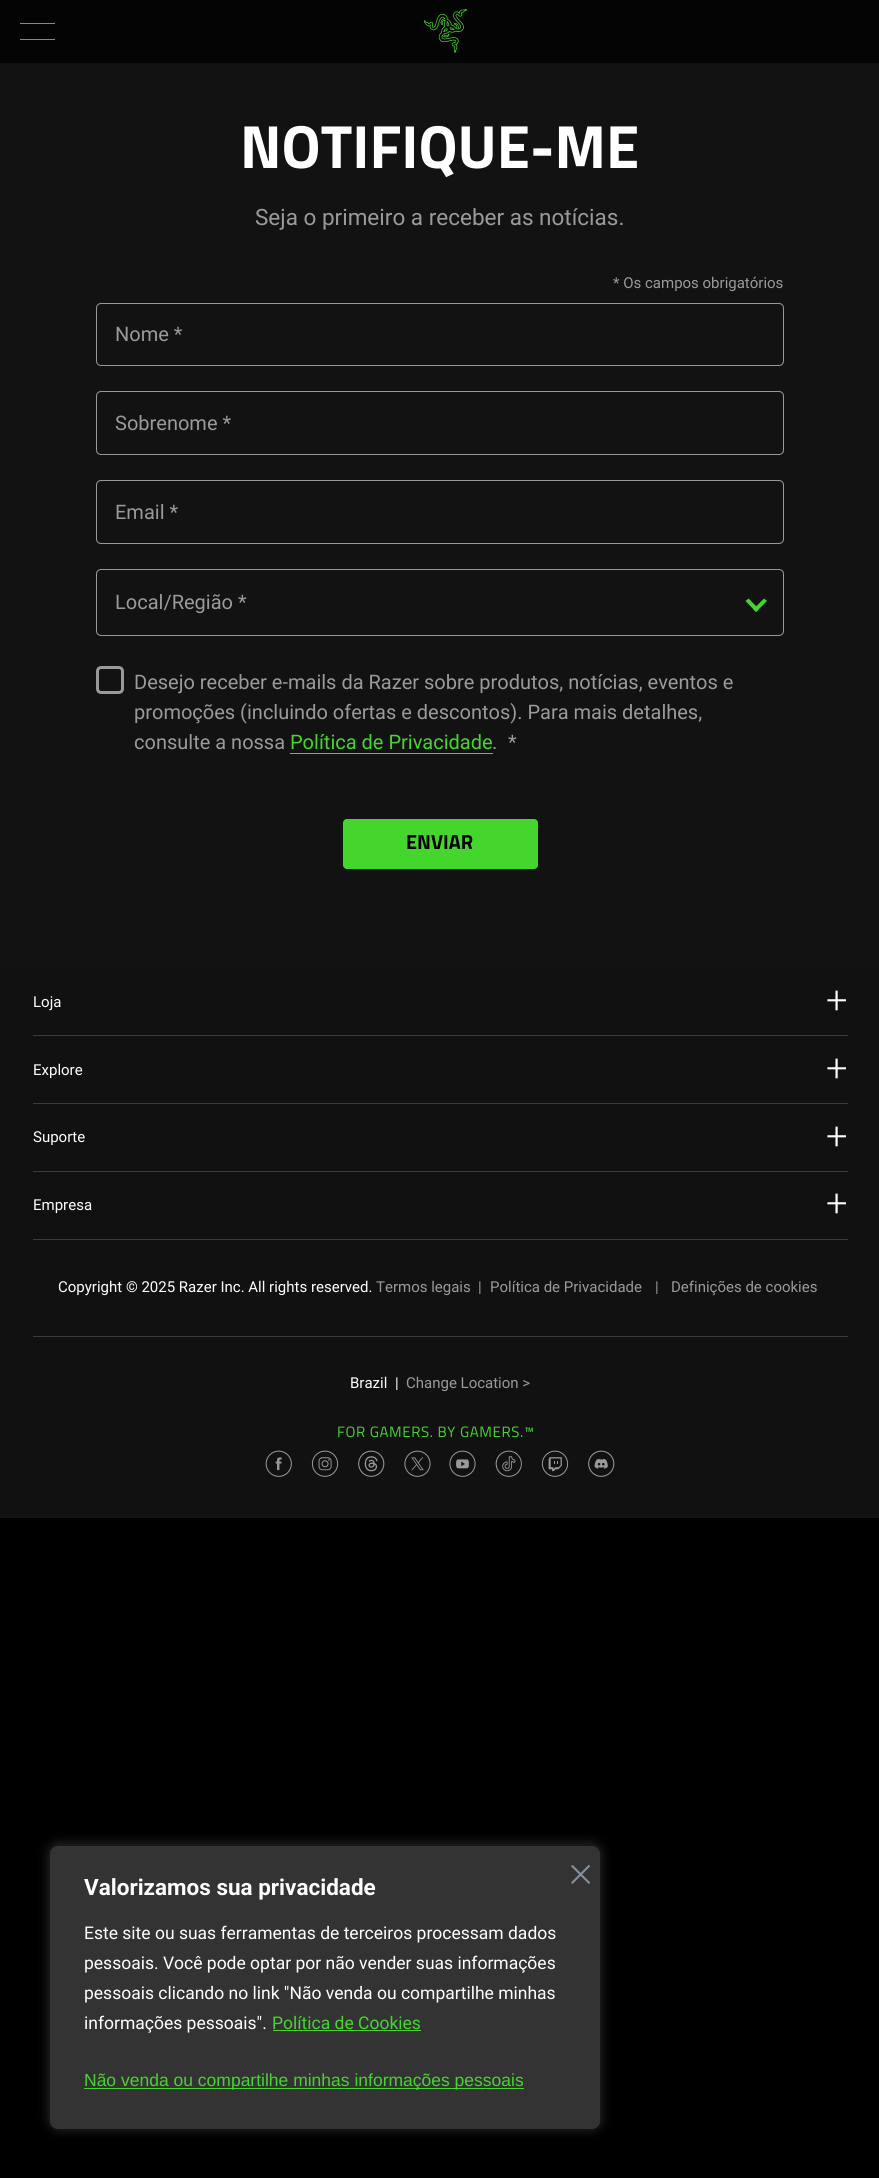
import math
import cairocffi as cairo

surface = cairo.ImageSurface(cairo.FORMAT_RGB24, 879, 2178)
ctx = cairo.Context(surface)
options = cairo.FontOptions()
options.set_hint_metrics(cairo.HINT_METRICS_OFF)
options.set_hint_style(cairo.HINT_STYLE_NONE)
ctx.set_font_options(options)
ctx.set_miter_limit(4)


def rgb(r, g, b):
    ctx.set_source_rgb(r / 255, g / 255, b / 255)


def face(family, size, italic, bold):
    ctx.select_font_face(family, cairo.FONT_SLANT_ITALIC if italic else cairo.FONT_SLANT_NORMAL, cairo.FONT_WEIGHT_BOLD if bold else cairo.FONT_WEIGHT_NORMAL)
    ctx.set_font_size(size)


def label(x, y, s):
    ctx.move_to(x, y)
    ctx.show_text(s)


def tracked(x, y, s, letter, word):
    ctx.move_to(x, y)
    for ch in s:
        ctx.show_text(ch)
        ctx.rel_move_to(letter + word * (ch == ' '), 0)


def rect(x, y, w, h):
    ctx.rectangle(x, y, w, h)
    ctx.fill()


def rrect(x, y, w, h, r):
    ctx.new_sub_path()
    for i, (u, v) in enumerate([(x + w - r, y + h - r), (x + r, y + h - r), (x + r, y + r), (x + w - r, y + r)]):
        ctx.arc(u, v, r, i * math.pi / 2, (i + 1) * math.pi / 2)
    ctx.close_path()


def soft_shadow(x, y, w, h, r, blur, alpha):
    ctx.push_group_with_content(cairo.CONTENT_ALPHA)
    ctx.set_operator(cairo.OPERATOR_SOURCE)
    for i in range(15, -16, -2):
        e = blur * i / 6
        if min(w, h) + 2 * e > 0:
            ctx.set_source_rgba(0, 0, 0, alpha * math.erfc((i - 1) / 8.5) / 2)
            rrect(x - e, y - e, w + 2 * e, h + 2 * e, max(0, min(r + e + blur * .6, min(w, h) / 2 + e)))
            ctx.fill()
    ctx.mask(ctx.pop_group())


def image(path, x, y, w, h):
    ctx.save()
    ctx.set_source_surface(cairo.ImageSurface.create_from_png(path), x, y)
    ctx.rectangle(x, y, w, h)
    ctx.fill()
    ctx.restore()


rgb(0, 0, 0)
ctx.paint()
rgb(4, 4, 4)
rect(0, 0, 879, 63)
rgb(136, 136, 136)
rect(20, 23, 35, 1)
rect(20, 39, 35, 1)
image('image0.png', 424, 9, 43, 44)
rgb(18, 18, 18)
rect(0, 63, 879, 906)
face('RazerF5', 60, 0, 1)
rgb(255, 255, 255)
label(240, 168, 'NOTIFIQUE-ME')
face('Roboto', 22.5, 0, 0)
rgb(154, 154, 154)
label(255, 225, 'Seja o primeiro a receber as notícias.')
face('Roboto', 15, 0, 0)
label(613, 288, '* Os campos obrigatórios')
rrect(96.5, 303.5, 687, 62, 4.5)
rgb(153, 153, 153)
ctx.set_line_width(1)
ctx.stroke()
face('Roboto', 20, 0, 0)
rgb(154, 154, 154)
label(115, 341, 'Nome *')
rrect(96.5, 391.5, 687, 63, 4.5)
rgb(153, 153, 153)
ctx.stroke()
rgb(154, 154, 154)
label(115, 430, 'Sobrenome *')
rrect(96.5, 480.5, 687, 63, 4.5)
rgb(153, 153, 153)
ctx.stroke()
rgb(154, 154, 154)
label(115, 519, 'Email *')
rrect(96.5, 569.5, 687, 66, 4.5)
rgb(153, 153, 153)
ctx.stroke()
rgb(154, 154, 154)
label(115, 609, 'Local/Região *')
rgb(68, 214, 44)
ctx.new_path()
ctx.move_to(764, 598.5)
ctx.line_to(767, 601)
ctx.line_to(756, 612)
ctx.line_to(753.5, 609)
ctx.close_path()
ctx.fill()
ctx.new_path()
ctx.move_to(748.5, 598.5)
ctx.line_to(759, 609)
ctx.line_to(756, 612)
ctx.line_to(745.5, 601)
ctx.close_path()
ctx.fill()
rrect(97.5, 667.5, 25, 25, 3.5)
rgb(153, 153, 153)
ctx.set_line_width(3)
ctx.stroke()
rgb(154, 154, 154)
label(134, 689, 'Desejo receber e-mails da Razer sobre produtos, notícias, eventos e')
label(134, 719, 'promoções (incluindo ofertas e descontos). Para mais detalhes,')
label(134, 749, 'consulte a nossa')
rgb(68, 214, 44)
label(290, 749, 'Política de Privacidade')
rgb(154, 154, 154)
label(508, 749, '*')
label(492, 749, '.')
rgb(68, 214, 44)
rect(290, 753, 203, 1)
rrect(343, 819, 195, 50, 4)
ctx.fill()
face('RazerF5', 20, 0, 1)
rgb(0, 0, 0)
label(406, 849, 'ENVIAR')
rgb(17, 17, 17)
rect(0, 969, 879, 549)
rgb(59, 59, 59)
rect(33, 1035, 815, 1)
face('Roboto', 15, 0, 0)
rgb(255, 255, 255)
label(33, 1007, 'Loja')
face('Roboto Light', 38, 0, 0)
label(826, 1013, '+')
rgb(59, 59, 59)
rect(33, 1103, 815, 1)
face('Roboto', 15, 0, 0)
rgb(255, 255, 255)
label(33, 1075, 'Explore')
face('Roboto Light', 38, 0, 0)
label(826, 1081, '+')
rgb(59, 59, 59)
rect(33, 1171, 815, 1)
face('Roboto', 15, 0, 0)
rgb(255, 255, 255)
label(33, 1142, 'Suporte')
face('Roboto Light', 38, 0, 0)
label(826, 1149, '+')
rgb(59, 59, 59)
rect(33, 1239, 815, 1)
face('Roboto', 15, 0, 0)
rgb(255, 255, 255)
label(33, 1210, 'Empresa')
face('Roboto Light', 38, 0, 0)
label(826, 1216, '+')
face('Roboto', 15, 0, 0)
label(58, 1292, 'Copyright © 2025 Razer Inc. All rights reserved.')
rgb(154, 154, 154)
label(376, 1292, 'Termos legais')
label(478, 1292, '|')
label(490, 1292, 'Política de Privacidade')
label(655, 1292, '|')
label(671, 1292, 'Definições de cookies')
rgb(59, 59, 59)
rect(33, 1336, 815, 1)
rgb(255, 255, 255)
label(350, 1388, 'Brazil')
label(395, 1388, '|')
rgb(154, 154, 154)
label(406, 1388, 'Change Location >')
face('RazerF5', 15, 0, 0)
rgb(68, 214, 44)
tracked(337, 1437, 'FOR GAMERS. BY GAMERS.™', 0.6, 0)
image('image1.png', 265, 1450, 27, 27)
image('image2.png', 311, 1450, 28, 27)
image('image3.png', 358, 1450, 27, 27)
image('image4.png', 404, 1450, 27, 27)
image('image5.png', 449, 1450, 27, 27)
image('image6.png', 495, 1450, 27, 27)
image('image7.png', 541, 1450, 28, 27)
image('image8.png', 588, 1450, 27, 27)
rgb(172, 171, 171)
soft_shadow(50, 1845, 550, 283, 8, 6, 0.3)
rgb(51, 51, 51)
rrect(50.5, 1846.5, 549, 282, 7.5)
ctx.fill_preserve()
ctx.set_line_width(1)
ctx.stroke()
image('image9.png', 571, 1865, 19, 19)
face('Roboto', 22.5, 0, 1)
rgb(255, 255, 255)
label(84, 1895, 'Valorizamos sua privacidade')
face('Roboto', 17.5, 0, 0)
label(84, 1939, 'Este site ou suas ferramentas de terceiros processam dados')
label(84, 1969, 'pessoais. Você pode optar por não vender suas informações')
label(84, 1999, 'pessoais clicando no link "Não venda ou compartilhe minhas')
label(84, 2029, 'informações pessoais".')
rgb(68, 214, 44)
label(272, 2029, 'Política de Cookies')
rect(273, 2030, 148, 1)
rect(84, 2088, 440, 1)
face('Liberation Sans', 17.5, 0, 0)
label(84, 2086, 'Não venda ou compartilhe minhas informações pessoais')
surface.write_to_png('render.png')
